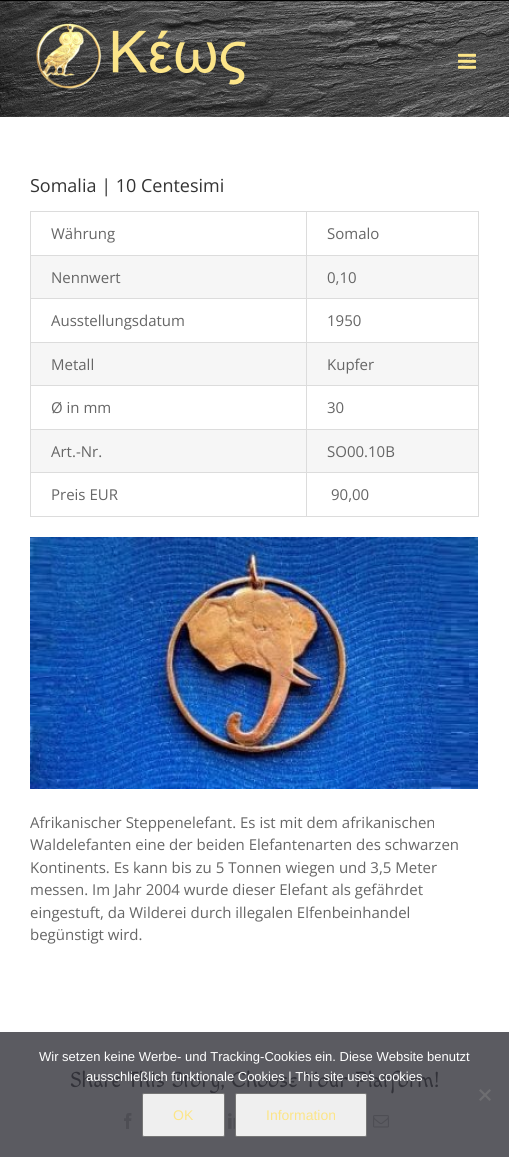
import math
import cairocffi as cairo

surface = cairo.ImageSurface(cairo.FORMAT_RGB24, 509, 1157)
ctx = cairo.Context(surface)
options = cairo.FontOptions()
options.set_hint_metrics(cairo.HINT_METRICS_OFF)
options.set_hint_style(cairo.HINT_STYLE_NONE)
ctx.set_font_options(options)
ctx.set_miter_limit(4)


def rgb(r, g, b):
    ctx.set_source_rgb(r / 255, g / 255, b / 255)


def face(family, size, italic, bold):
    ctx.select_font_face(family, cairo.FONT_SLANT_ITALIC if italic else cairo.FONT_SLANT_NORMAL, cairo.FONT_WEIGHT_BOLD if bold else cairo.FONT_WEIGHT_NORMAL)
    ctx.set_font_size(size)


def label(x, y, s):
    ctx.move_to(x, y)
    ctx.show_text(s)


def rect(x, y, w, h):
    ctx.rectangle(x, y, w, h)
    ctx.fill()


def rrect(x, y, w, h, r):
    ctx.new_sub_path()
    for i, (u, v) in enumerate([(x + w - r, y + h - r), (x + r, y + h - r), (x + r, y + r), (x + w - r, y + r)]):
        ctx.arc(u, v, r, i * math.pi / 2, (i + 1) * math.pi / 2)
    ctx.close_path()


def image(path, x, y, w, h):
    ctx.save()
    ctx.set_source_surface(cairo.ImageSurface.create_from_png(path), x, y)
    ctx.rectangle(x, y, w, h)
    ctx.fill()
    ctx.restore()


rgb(255, 255, 255)
ctx.paint()
rgb(91, 91, 97)
rect(0, 1032, 509, 125)
rgb(0, 0, 0)
rect(0, 0, 509, 1)
image('image0.png', 0, 1, 509, 116)
image('image1.png', 36, 23, 210, 66)
image('image2.png', 458, 53, 18, 16)
face('Open Sans', 18, 0, 0)
rgb(51, 51, 51)
label(30, 192, 'Somalia | 10 Centesimi')
rgb(220, 220, 220)
rect(30, 211, 449, 1)
rect(478, 211, 1, 306)
rect(30, 516, 449, 1)
rect(30, 211, 1, 306)
face('Open Sans', 15, 0, 0)
rgb(102, 102, 102)
label(51, 239, 'Währung')
rgb(220, 220, 220)
rect(306, 255, 173, 1)
rgb(246, 246, 246)
rect(31, 256, 447, 42)
rgb(220, 220, 220)
rect(306, 298, 173, 1)
rect(306, 342, 173, 1)
rgb(246, 246, 246)
rect(31, 343, 447, 42)
rgb(220, 220, 220)
rect(306, 385, 173, 1)
rect(306, 429, 173, 1)
rgb(246, 246, 246)
rect(31, 430, 447, 42)
rgb(220, 220, 220)
rect(306, 472, 173, 1)
rect(306, 472, 1, 45)
rect(30, 472, 277, 1)
rect(306, 429, 1, 44)
rect(30, 429, 277, 1)
rect(306, 385, 1, 45)
rect(30, 385, 277, 1)
rect(306, 342, 1, 44)
rect(30, 342, 277, 1)
rect(306, 298, 1, 45)
rect(30, 298, 277, 1)
rect(306, 255, 1, 44)
rect(30, 255, 277, 1)
rect(306, 211, 1, 45)
rgb(102, 102, 102)
label(327, 239, 'Somalo')
label(51, 283, 'Nennwert')
label(327, 283, '0,10')
label(51, 326, 'Ausstellungsdatum')
label(327, 326, '1950')
label(51, 370, 'Metall')
label(327, 370, 'Kupfer')
label(51, 413, 'Ø in mm')
label(327, 413, '30')
label(51, 457, 'Art.-Nr.')
label(327, 457, 'SO00.10B')
label(51, 500, 'Preis EUR')
label(331, 500, '90,00')
image('image3.png', 30, 537, 448, 252)
label(30, 828, 'Afrikanischer Steppenelefant. Es ist mit dem afrikanischen')
label(30, 850, 'Waldelefanten eine der beiden Elefantenarten des schwarzen')
label(30, 873, 'Kontinents. Es kann bis zu 5 Tonnen wiegen und 3,5 Meter')
label(30, 895, 'messen. Im Jahr 2004 wurde dieser Elefant als gefährdet')
label(30, 918, 'eingestuft, da Wilderei durch illegalen Elfenbeinhandel')
label(30, 940, 'begünstigt wird.')
face('Macondo', 22, 0, 0)
rgb(50, 50, 57)
label(70, 1087, 'Share This Story, Choose Your Platform!')
image('image4.png', 124, 1113, 8, 16)
image('image5.png', 228, 1113, 7, 16)
image('image6.png', 373, 1115, 16, 13)
face('Liberation Sans', 13, 0, 0)
rgb(255, 255, 255)
label(39, 1061, 'Wir setzen keine Werbe- und Tracking-Cookies ein. Diese Website benutzt')
label(86, 1081, 'ausschließlich funktionale Cookies | This site uses cookies')
rgb(110, 110, 113)
ctx.new_path()
ctx.move_to(489.5, 1089)
ctx.line_to(491, 1090.5)
ctx.line_to(480.5, 1101)
ctx.line_to(479, 1099.5)
ctx.close_path()
ctx.fill()
ctx.new_path()
ctx.move_to(479, 1090.5)
ctx.line_to(480.5, 1089)
ctx.line_to(491, 1099.5)
ctx.line_to(489.5, 1101)
ctx.close_path()
ctx.fill()
rgb(239, 239, 239)
rrect(142.5, 1093.5, 82, 43, 1.5)
ctx.fill_preserve()
rgb(118, 118, 118)
ctx.set_line_width(1)
ctx.stroke()
face('Liberation Sans', 14, 0, 0)
rgb(252, 229, 136)
label(173, 1120, 'OK')
rgb(239, 239, 239)
rrect(235.5, 1093.5, 131, 43, 1.5)
ctx.fill_preserve()
rgb(118, 118, 118)
ctx.stroke()
rgb(252, 229, 136)
label(266, 1120, 'Information')
surface.write_to_png('render.png')
